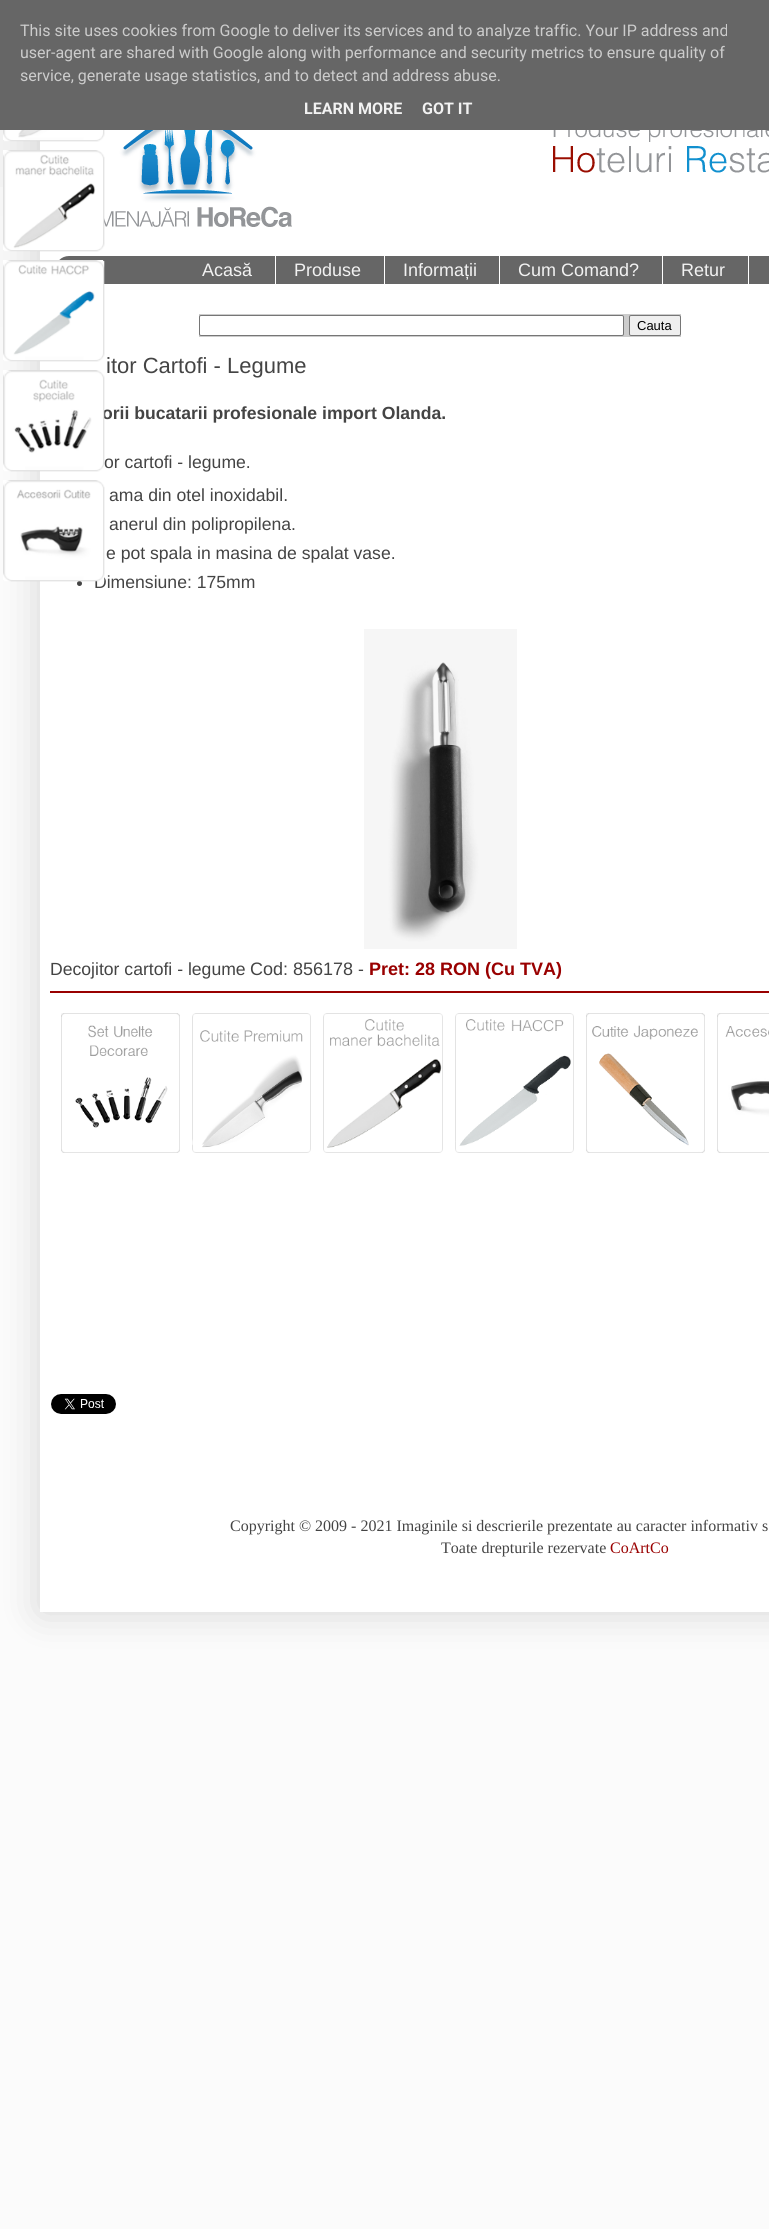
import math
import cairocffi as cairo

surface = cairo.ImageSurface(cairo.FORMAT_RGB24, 769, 2229)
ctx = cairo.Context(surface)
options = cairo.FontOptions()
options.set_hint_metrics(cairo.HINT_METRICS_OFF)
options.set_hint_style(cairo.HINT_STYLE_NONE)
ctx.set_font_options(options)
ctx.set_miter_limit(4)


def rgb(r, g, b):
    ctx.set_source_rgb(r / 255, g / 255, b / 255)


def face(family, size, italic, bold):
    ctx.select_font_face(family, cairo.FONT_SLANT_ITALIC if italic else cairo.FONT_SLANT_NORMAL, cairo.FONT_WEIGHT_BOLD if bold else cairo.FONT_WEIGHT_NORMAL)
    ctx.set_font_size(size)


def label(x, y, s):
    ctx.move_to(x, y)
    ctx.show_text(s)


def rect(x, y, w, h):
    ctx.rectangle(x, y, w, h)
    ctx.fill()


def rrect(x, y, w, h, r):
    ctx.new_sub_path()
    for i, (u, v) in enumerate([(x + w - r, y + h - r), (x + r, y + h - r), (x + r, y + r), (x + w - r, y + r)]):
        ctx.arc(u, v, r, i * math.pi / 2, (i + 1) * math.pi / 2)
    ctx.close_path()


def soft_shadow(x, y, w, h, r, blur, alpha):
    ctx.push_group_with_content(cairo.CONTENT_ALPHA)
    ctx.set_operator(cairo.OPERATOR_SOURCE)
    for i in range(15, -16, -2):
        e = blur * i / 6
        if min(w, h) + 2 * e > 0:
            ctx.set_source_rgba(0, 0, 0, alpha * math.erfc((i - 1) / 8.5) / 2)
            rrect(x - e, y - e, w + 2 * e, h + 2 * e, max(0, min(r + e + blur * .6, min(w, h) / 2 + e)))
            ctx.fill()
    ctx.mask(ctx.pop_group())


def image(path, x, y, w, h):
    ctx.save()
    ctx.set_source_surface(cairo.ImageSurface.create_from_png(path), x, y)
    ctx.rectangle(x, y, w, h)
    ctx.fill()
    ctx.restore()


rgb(251, 251, 251)
ctx.paint()
rgb(242, 242, 242)
rect(0, 130, 40, 270)
image('image0.png', 0, 187, 40, 213)
rgb(0, 0, 0)
soft_shadow(40, 56, 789, 1556, 0, 20, 0.15)
rgb(102, 102, 102)
rect(0, 0, 769, 130)
face('Roboto', 16, 0, 0)
rgb(204, 204, 204)
label(20, 36, 'This site uses cookies from Google to deliver its services and to analyze traffic. Your IP address and')
label(20, 58, 'user-agent are shared with Google along with performance and security metrics to ensure quality of')
label(20, 81, 'service, generate usage statistics, and to detect and address abuse.')
face('Roboto', 16, 0, 1)
rgb(242, 242, 242)
label(304, 114, 'LEARN MORE')
label(422, 114, 'GOT IT')
image('image1.png', 3, 130, 2, 10)
rgb(255, 255, 255)
rect(40, 130, 729, 1482)
image('image2.png', 3, 150, 100, 100)
rgb(102, 102, 102)
rrect(55, 256, 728, 28, 14)
ctx.fill()
image('image3.png', 3, 260, 100, 100)
image('image4.png', 103, 130, 666, 97)
face('Liberation Sans', 18, 0, 0)
rgb(242, 242, 242)
label(202, 276, 'Acasă')
rgb(255, 255, 255)
rect(275, 256, 1, 28)
rgb(242, 242, 242)
label(294, 276, 'Produse')
rgb(255, 255, 255)
rect(384, 256, 1, 28)
rgb(242, 242, 242)
label(403, 276, 'Informații')
rgb(255, 255, 255)
rect(499, 256, 1, 28)
rgb(242, 242, 242)
label(518, 276, 'Cum Comand?')
rgb(255, 255, 255)
rect(662, 256, 1, 28)
rgb(242, 242, 242)
label(681, 276, 'Retur')
rgb(255, 255, 255)
rect(748, 256, 1, 28)
rgb(204, 204, 204)
rect(199, 314, 482, 23)
rgb(255, 255, 255)
rrect(199.5, 315.5, 424, 20, 1.5)
ctx.fill_preserve()
rgb(118, 118, 118)
ctx.set_line_width(1)
ctx.stroke()
rgb(239, 239, 239)
rrect(629.5, 315.5, 51, 20, 1.5)
ctx.fill_preserve()
rgb(118, 118, 118)
ctx.stroke()
face('Liberation Sans', 13, 0, 0)
rgb(0, 0, 0)
label(637, 330, 'Cauta')
face('Liberation Sans', 22, 0, 0)
rgb(68, 68, 68)
label(106, 373, 'itor Cartofi - Legume')
image('image5.png', 4, 130, 101, 12)
image('image6.png', 40, 130, 65, 12)
image('image7.png', 4, 151, 101, 101)
image('image8.png', 40, 157, 65, 95)
image('image9.png', 4, 260, 101, 102)
image('image10.png', 40, 260, 65, 102)
face('Liberation Sans', 17.6, 0, 1)
label(102, 419, 'orii bucatarii profesionale import Olanda.')
face('Liberation Sans', 17.6, 0, 0)
label(104, 468, 'or cartofi - legume.')
image('image23.png', 3, 370, 100, 100)
image('image11.png', 4, 370, 101, 102)
image('image12.png', 11, 370, 94, 102)
ctx.arc(79.5, 583.5, 2.5, 0, 2 * math.pi)
ctx.fill()
label(94, 588, 'Dimensiune: 175mm')
image('image24.png', 3, 480, 100, 100)
image('image13.png', 4, 481, 101, 101)
image('image14.png', 11, 487, 94, 95)
label(109, 501, 'ama din otel inoxidabil.')
label(109, 530, 'anerul din polipropilena.')
label(106, 559, 'e pot spala in masina de spalat vase.')
image('image15.png', 364, 629, 153, 320)
label(50, 975, 'Decojitor cartofi - legume')
face('Liberation Sans', 18, 0, 0)
label(250, 975, 'Cod: 856178')
face('Liberation Sans', 17.6, 0, 0)
label(358, 975, '-')
face('Liberation Sans', 18, 0, 1)
rgb(153, 0, 0)
label(369, 975, 'Pret: 28 RON (Cu TVA)')
rect(50, 991, 719, 2)
image('image16.png', 61, 1013, 119, 140)
image('image17.png', 192, 1013, 119, 140)
image('image18.png', 323, 1013, 120, 140)
image('image19.png', 455, 1013, 119, 140)
image('image20.png', 586, 1013, 119, 140)
image('image21.png', 717, 1013, 52, 140)
image('image22.png', 51, 1394, 65, 20)
face('Liberation Serif', 16, 0, 0)
rgb(68, 68, 68)
label(230, 1531, 'Copyright © 2009 - 2021 Imaginile si descrierile prezentate au caracter informativ s')
label(441, 1553, 'Toate drepturile rezervate')
rgb(153, 0, 0)
label(610, 1553, 'CoArtCo')
surface.write_to_png('render.png')
